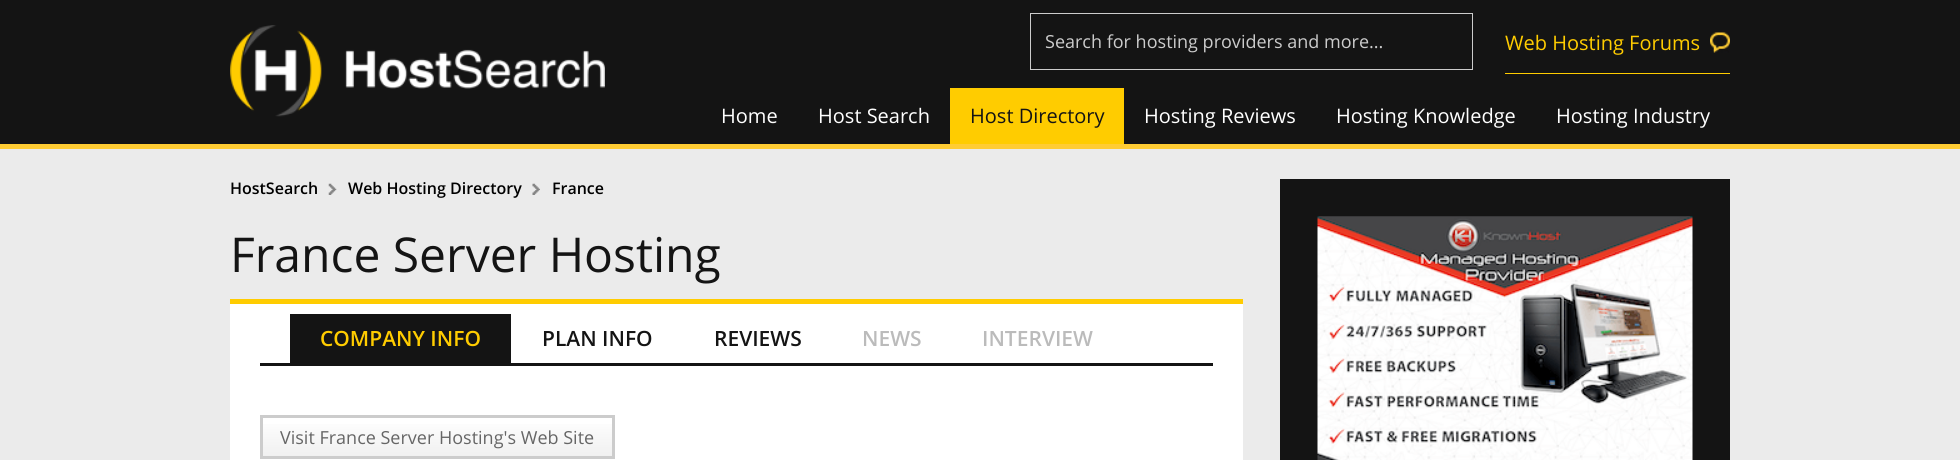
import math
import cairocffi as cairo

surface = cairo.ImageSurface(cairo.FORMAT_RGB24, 1960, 460)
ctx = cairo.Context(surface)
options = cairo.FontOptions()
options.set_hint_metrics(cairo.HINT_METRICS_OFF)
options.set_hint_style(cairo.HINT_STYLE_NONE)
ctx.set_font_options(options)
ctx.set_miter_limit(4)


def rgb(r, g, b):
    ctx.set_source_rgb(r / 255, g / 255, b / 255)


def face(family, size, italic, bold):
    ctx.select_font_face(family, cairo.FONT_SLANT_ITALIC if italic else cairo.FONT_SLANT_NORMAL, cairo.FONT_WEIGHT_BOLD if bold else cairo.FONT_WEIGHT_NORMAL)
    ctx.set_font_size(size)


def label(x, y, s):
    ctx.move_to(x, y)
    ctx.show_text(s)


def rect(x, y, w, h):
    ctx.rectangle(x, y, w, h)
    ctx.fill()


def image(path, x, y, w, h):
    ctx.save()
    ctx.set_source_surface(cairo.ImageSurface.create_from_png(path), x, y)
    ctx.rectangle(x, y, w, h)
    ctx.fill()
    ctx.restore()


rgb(235, 235, 235)
ctx.paint()
rgb(20, 20, 20)
rect(0, 0, 1960, 144)
rgb(255, 204, 51)
rect(0, 144, 1960, 5)
image('image0.png', 230, 25, 375, 92)
ctx.rectangle(1030.5, 13.5, 442, 56)
rgb(204, 204, 204)
ctx.set_line_width(1)
ctx.stroke()
face('Open Sans', 18, 0, 0)
label(1045, 48, 'Search for hosting providers and more...')
image('image1.png', 1710, 32, 20, 21)
rgb(255, 204, 0)
rect(1505, 73, 225, 1)
face('Open Sans', 20, 0, 0)
label(1505, 50, 'Web Hosting Forums')
rgb(255, 255, 255)
label(721, 123, 'Home')
label(818, 123, 'Host Search')
rgb(255, 204, 0)
rect(950, 88, 174, 56)
rgb(20, 20, 20)
label(970, 123, 'Host Directory')
rgb(255, 255, 255)
label(1144, 123, 'Hosting Reviews')
label(1336, 123, 'Hosting Knowledge')
label(1556, 123, 'Hosting Industry')
face('Open Sans SemiBold', 16, 0, 0)
rgb(0, 0, 0)
label(230, 194, 'HostSearch')
image('image2.png', 328, 183, 9, 12)
label(348, 194, 'Web Hosting Directory')
image('image3.png', 532, 183, 8, 12)
label(552, 194, 'France')
face('Open Sans', 48, 0, 0)
rgb(20, 20, 20)
label(230, 272, 'France Server Hosting')
rgb(255, 255, 255)
rect(230, 304, 1013, 156)
rgb(255, 204, 0)
rect(230, 299, 1013, 5)
rgb(20, 20, 20)
rect(260, 363, 953, 3)
rect(290, 314, 221, 49)
face('Open Sans SemiBold', 21, 0, 0)
rgb(255, 204, 0)
label(320, 346, 'COMPANY INFO')
rgb(20, 20, 20)
label(542, 346, 'PLAN INFO')
label(714, 346, 'REVIEWS')
rgb(187, 187, 187)
label(862, 346, 'NEWS')
label(982, 346, 'INTERVIEW')
gradient = cairo.LinearGradient(438, 418, 438, 456)
gradient.add_color_stop_rgba(0, 1, 1, 1, 1)
gradient.add_color_stop_rgba(1, 0.941, 0.941, 0.941, 1)
ctx.set_source(gradient)
rect(263, 424, 349, 32)
ctx.rectangle(261.5, 416.5, 352, 41)
rgb(204, 204, 204)
ctx.set_line_width(3)
ctx.stroke()
face('Open Sans', 18, 0, 0)
rgb(102, 102, 102)
label(280, 444, 'Visit France Server Hosting\'s Web Site')
rgb(20, 20, 20)
rect(1280, 179, 450, 281)
image('image4.png', 1317, 216, 376, 244)
surface.write_to_png('render.png')
